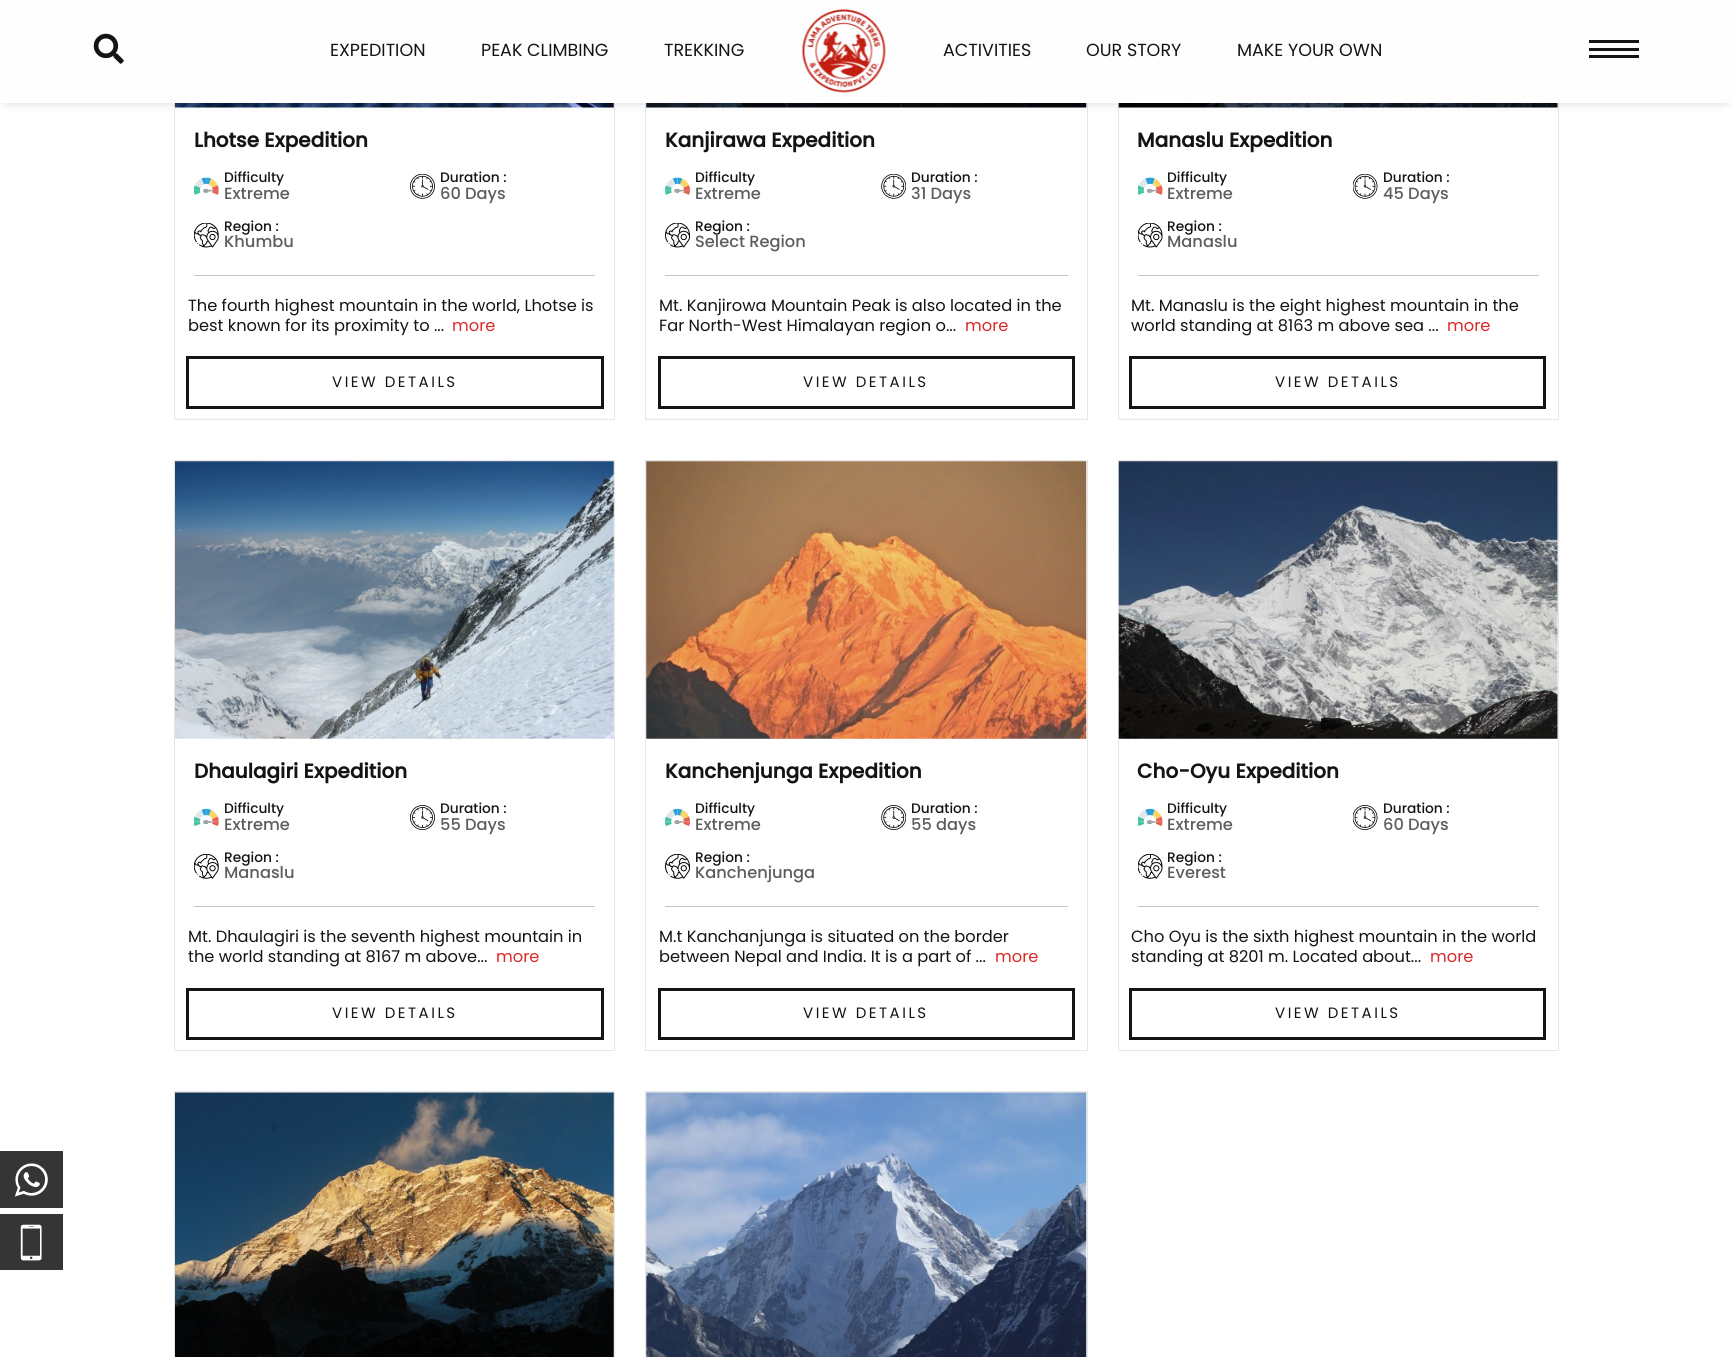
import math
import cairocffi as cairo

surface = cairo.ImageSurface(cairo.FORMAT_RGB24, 1732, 1357)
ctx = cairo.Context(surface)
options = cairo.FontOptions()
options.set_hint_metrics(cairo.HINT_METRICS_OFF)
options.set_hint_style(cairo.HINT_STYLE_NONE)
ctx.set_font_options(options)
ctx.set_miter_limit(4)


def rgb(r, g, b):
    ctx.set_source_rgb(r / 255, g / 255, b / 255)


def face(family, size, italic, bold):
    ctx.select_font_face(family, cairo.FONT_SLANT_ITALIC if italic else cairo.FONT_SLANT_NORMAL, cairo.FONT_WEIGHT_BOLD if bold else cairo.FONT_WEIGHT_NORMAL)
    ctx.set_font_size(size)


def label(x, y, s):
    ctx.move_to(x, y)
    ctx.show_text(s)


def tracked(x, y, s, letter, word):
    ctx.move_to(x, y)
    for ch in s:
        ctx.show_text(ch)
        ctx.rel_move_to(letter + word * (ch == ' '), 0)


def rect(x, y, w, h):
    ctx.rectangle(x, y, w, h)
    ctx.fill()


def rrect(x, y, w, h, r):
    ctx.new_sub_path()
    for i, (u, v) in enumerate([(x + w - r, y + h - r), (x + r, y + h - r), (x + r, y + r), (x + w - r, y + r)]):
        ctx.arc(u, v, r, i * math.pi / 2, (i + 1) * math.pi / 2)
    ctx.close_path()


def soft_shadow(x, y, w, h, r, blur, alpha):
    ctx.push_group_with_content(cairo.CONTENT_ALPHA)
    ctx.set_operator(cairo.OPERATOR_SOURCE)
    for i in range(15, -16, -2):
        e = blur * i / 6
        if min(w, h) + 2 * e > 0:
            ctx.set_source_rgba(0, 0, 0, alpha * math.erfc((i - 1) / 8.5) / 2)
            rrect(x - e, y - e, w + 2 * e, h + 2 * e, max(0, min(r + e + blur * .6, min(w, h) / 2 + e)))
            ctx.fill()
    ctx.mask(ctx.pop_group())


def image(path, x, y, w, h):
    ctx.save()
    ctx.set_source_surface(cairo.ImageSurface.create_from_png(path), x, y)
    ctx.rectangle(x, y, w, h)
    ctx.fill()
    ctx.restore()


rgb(255, 255, 255)
ctx.paint()
ctx.rectangle(174.5, -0.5, 440, 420)
rgb(230, 230, 230)
ctx.set_line_width(1)
ctx.stroke()
image('image2.png', 175, 103, 439, 5)
ctx.rectangle(645.5, -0.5, 442, 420)
ctx.stroke()
image('image6.png', 646, 103, 441, 5)
ctx.rectangle(1118.5, -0.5, 440, 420)
ctx.stroke()
image('image10.png', 1118, 103, 440, 5)
rgb(0, 0, 0)
soft_shadow(6, 10, 1720, 90, 0, 6, 0.25)
rgb(254, 254, 254)
rect(0, 0, 1732, 103)
image('image0.png', 93, 33, 31, 31)
face('Poppins', 17.5, 0, 0)
rgb(20, 20, 20)
label(330, 56, 'EXPEDITION')
label(481, 56, 'PEAK CLIMBING')
label(664, 56, 'TREKKING')
image('image1.png', 802, 9, 85, 84)
label(943, 56, 'ACTIVITIES')
label(1086, 56, 'OUR STORY')
label(1237, 56, 'MAKE YOUR OWN')
rect(1589, 40, 50, 3)
rect(1589, 48, 50, 3)
rect(1589, 55, 50, 3)
face('Poppins', 20, 0, 1)
label(194, 147, 'Lhotse Expedition')
image('image3.png', 194, 177, 25, 18)
face('Poppins Medium', 13.75, 0, 0)
label(224, 182, 'Difficulty')
face('Poppins Medium', 16.25, 0, 0)
rgb(93, 93, 93)
label(224, 199, 'Extreme')
image('image4.png', 410, 174, 25, 25)
face('Poppins Medium', 13.75, 0, 0)
rgb(20, 20, 20)
label(440, 182, 'Duration :')
face('Poppins Medium', 16.25, 0, 0)
rgb(93, 93, 93)
label(440, 199, '60 Days')
image('image5.png', 194, 223, 25, 25)
face('Poppins Medium', 13.75, 0, 0)
rgb(20, 20, 20)
label(224, 231, 'Region :')
face('Poppins Medium', 16.25, 0, 0)
rgb(93, 93, 93)
label(224, 247, 'Khumbu')
rgb(196, 196, 196)
rect(194, 275, 401, 1)
face('Poppins', 16.25, 0, 0)
rgb(20, 20, 20)
label(188, 311, 'The fourth highest mountain in the world, Lhotse is')
label(188, 331, 'best known for its proximity to ...')
rgb(220, 40, 40)
label(452, 331, 'more')
ctx.rectangle(187.5, 357.5, 415, 50)
rgb(20, 20, 20)
ctx.set_line_width(3)
ctx.stroke()
face('Poppins', 15, 0, 0)
tracked(332, 387, 'VIEW DETAILS', 2.5, 0)
face('Poppins', 20, 0, 1)
label(665, 147, 'Kanjirawa Expedition')
image('image7.png', 665, 177, 25, 18)
face('Poppins Medium', 13.75, 0, 0)
label(695, 182, 'Difficulty')
face('Poppins Medium', 16.25, 0, 0)
rgb(93, 93, 93)
label(695, 199, 'Extreme')
image('image8.png', 881, 174, 25, 25)
face('Poppins Medium', 13.75, 0, 0)
rgb(20, 20, 20)
label(911, 182, 'Duration :')
face('Poppins Medium', 16.25, 0, 0)
rgb(93, 93, 93)
label(911, 199, '31 Days')
image('image9.png', 665, 223, 25, 25)
face('Poppins Medium', 13.75, 0, 0)
rgb(20, 20, 20)
label(695, 231, 'Region :')
face('Poppins Medium', 16.25, 0, 0)
rgb(93, 93, 93)
label(695, 247, 'Select Region')
rgb(196, 196, 196)
rect(665, 275, 403, 1)
face('Poppins', 16.25, 0, 0)
rgb(20, 20, 20)
label(659, 311, 'Mt. Kanjirowa Mountain Peak is also located in the')
label(659, 331, 'Far North-West Himalayan region o...')
rgb(220, 40, 40)
label(965, 331, 'more')
ctx.rectangle(659.5, 357.5, 414, 50)
rgb(20, 20, 20)
ctx.stroke()
face('Poppins', 15, 0, 0)
tracked(803, 387, 'VIEW DETAILS', 2.5, 0)
face('Poppins', 20, 0, 1)
label(1137, 147, 'Manaslu Expedition')
image('image11.png', 1138, 177, 25, 18)
face('Poppins Medium', 13.75, 0, 0)
label(1167, 182, 'Difficulty')
face('Poppins Medium', 16.25, 0, 0)
rgb(93, 93, 93)
label(1167, 199, 'Extreme')
image('image12.png', 1353, 174, 25, 25)
face('Poppins Medium', 13.75, 0, 0)
rgb(20, 20, 20)
label(1383, 182, 'Duration :')
face('Poppins Medium', 16.25, 0, 0)
rgb(93, 93, 93)
label(1383, 199, '45 Days')
image('image13.png', 1138, 223, 25, 25)
face('Poppins Medium', 13.75, 0, 0)
rgb(20, 20, 20)
label(1167, 231, 'Region :')
face('Poppins Medium', 16.25, 0, 0)
rgb(93, 93, 93)
label(1167, 247, 'Manaslu')
rgb(196, 196, 196)
rect(1138, 275, 401, 1)
face('Poppins', 16.25, 0, 0)
rgb(20, 20, 20)
label(1131, 311, 'Mt. Manaslu is the eight highest mountain in the')
label(1131, 331, 'world standing at 8163 m above sea ...')
rgb(220, 40, 40)
label(1447, 331, 'more')
ctx.rectangle(1130.5, 357.5, 414, 50)
rgb(20, 20, 20)
ctx.stroke()
face('Poppins', 15, 0, 0)
tracked(1275, 387, 'VIEW DETAILS', 2.5, 0)
ctx.rectangle(174.5, 460.5, 440, 590)
rgb(230, 230, 230)
ctx.set_line_width(1)
ctx.stroke()
image('image14.png', 175, 461, 439, 278)
face('Poppins', 20, 0, 1)
rgb(20, 20, 20)
label(194, 778, 'Dhaulagiri Expedition')
image('image15.png', 194, 808, 25, 19)
face('Poppins Medium', 13.75, 0, 0)
label(224, 813, 'Difficulty')
face('Poppins Medium', 16.25, 0, 0)
rgb(93, 93, 93)
label(224, 830, 'Extreme')
image('image16.png', 410, 805, 25, 25)
face('Poppins Medium', 13.75, 0, 0)
rgb(20, 20, 20)
label(440, 813, 'Duration :')
face('Poppins Medium', 16.25, 0, 0)
rgb(93, 93, 93)
label(440, 830, '55 Days')
image('image17.png', 194, 854, 25, 25)
face('Poppins Medium', 13.75, 0, 0)
rgb(20, 20, 20)
label(224, 862, 'Region :')
face('Poppins Medium', 16.25, 0, 0)
rgb(93, 93, 93)
label(224, 878, 'Manaslu')
rgb(196, 196, 196)
rect(194, 906, 401, 1)
face('Poppins', 16.25, 0, 0)
rgb(20, 20, 20)
label(188, 942, 'Mt. Dhaulagiri is the seventh highest mountain in')
label(188, 962, 'the world standing at 8167 m above...')
rgb(220, 40, 40)
label(496, 962, 'more')
ctx.rectangle(187.5, 989.5, 415, 49)
rgb(20, 20, 20)
ctx.set_line_width(3)
ctx.stroke()
face('Poppins', 15, 0, 0)
tracked(332, 1018, 'VIEW DETAILS', 2.5, 0)
ctx.rectangle(645.5, 460.5, 442, 590)
rgb(230, 230, 230)
ctx.set_line_width(1)
ctx.stroke()
image('image18.png', 646, 461, 441, 278)
face('Poppins', 20, 0, 1)
rgb(20, 20, 20)
label(665, 778, 'Kanchenjunga Expedition')
image('image19.png', 665, 808, 25, 18)
face('Poppins Medium', 13.75, 0, 0)
label(695, 813, 'Difficulty')
face('Poppins Medium', 16.25, 0, 0)
rgb(93, 93, 93)
label(695, 830, 'Extreme')
image('image20.png', 881, 805, 25, 25)
face('Poppins Medium', 13.75, 0, 0)
rgb(20, 20, 20)
label(911, 813, 'Duration :')
face('Poppins Medium', 16.25, 0, 0)
rgb(93, 93, 93)
label(911, 830, '55 days')
image('image21.png', 665, 854, 25, 25)
face('Poppins Medium', 13.75, 0, 0)
rgb(20, 20, 20)
label(695, 862, 'Region :')
face('Poppins Medium', 16.25, 0, 0)
rgb(93, 93, 93)
label(695, 878, 'Kanchenjunga')
rgb(196, 196, 196)
rect(665, 906, 403, 1)
face('Poppins', 16.25, 0, 0)
rgb(20, 20, 20)
label(659, 942, 'M.t Kanchanjunga is situated on the border')
label(659, 962, 'between Nepal and India. It is a part of ...')
rgb(220, 40, 40)
label(995, 962, 'more')
ctx.rectangle(659.5, 989.5, 414, 49)
rgb(20, 20, 20)
ctx.set_line_width(3)
ctx.stroke()
face('Poppins', 15, 0, 0)
tracked(803, 1018, 'VIEW DETAILS', 2.5, 0)
ctx.rectangle(1118.5, 460.5, 440, 590)
rgb(230, 230, 230)
ctx.set_line_width(1)
ctx.stroke()
image('image22.png', 1118, 461, 440, 278)
face('Poppins', 20, 0, 1)
rgb(20, 20, 20)
label(1137, 778, 'Cho-Oyu Expedition')
image('image23.png', 1138, 808, 25, 19)
face('Poppins Medium', 13.75, 0, 0)
label(1167, 813, 'Difficulty')
face('Poppins Medium', 16.25, 0, 0)
rgb(93, 93, 93)
label(1167, 830, 'Extreme')
image('image24.png', 1353, 805, 25, 25)
face('Poppins Medium', 13.75, 0, 0)
rgb(20, 20, 20)
label(1383, 813, 'Duration :')
face('Poppins Medium', 16.25, 0, 0)
rgb(93, 93, 93)
label(1383, 830, '60 Days')
image('image25.png', 1138, 854, 25, 25)
face('Poppins Medium', 13.75, 0, 0)
rgb(20, 20, 20)
label(1167, 862, 'Region :')
face('Poppins Medium', 16.25, 0, 0)
rgb(93, 93, 93)
label(1167, 878, 'Everest')
rgb(196, 196, 196)
rect(1138, 906, 401, 1)
face('Poppins', 16.25, 0, 0)
rgb(20, 20, 20)
label(1131, 942, 'Cho Oyu is the sixth highest mountain in the world')
label(1131, 962, 'standing at 8201 m. Located about...')
rgb(220, 40, 40)
label(1430, 962, 'more')
ctx.rectangle(1130.5, 989.5, 414, 49)
rgb(20, 20, 20)
ctx.set_line_width(3)
ctx.stroke()
face('Poppins', 15, 0, 0)
tracked(1275, 1018, 'VIEW DETAILS', 2.5, 0)
ctx.rectangle(174.5, 1091.5, 440, 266)
rgb(230, 230, 230)
ctx.set_line_width(1)
ctx.stroke()
image('image26.png', 175, 1092, 439, 265)
ctx.rectangle(645.5, 1091.5, 442, 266)
ctx.stroke()
image('image27.png', 646, 1092, 441, 265)
rgb(53, 53, 53)
rect(0, 1151, 63, 57)
image('image28.png', 14, 1163, 34, 34)
rect(0, 1214, 63, 56)
image('image29.png', 20, 1224, 22, 37)
surface.write_to_png('render.png')
